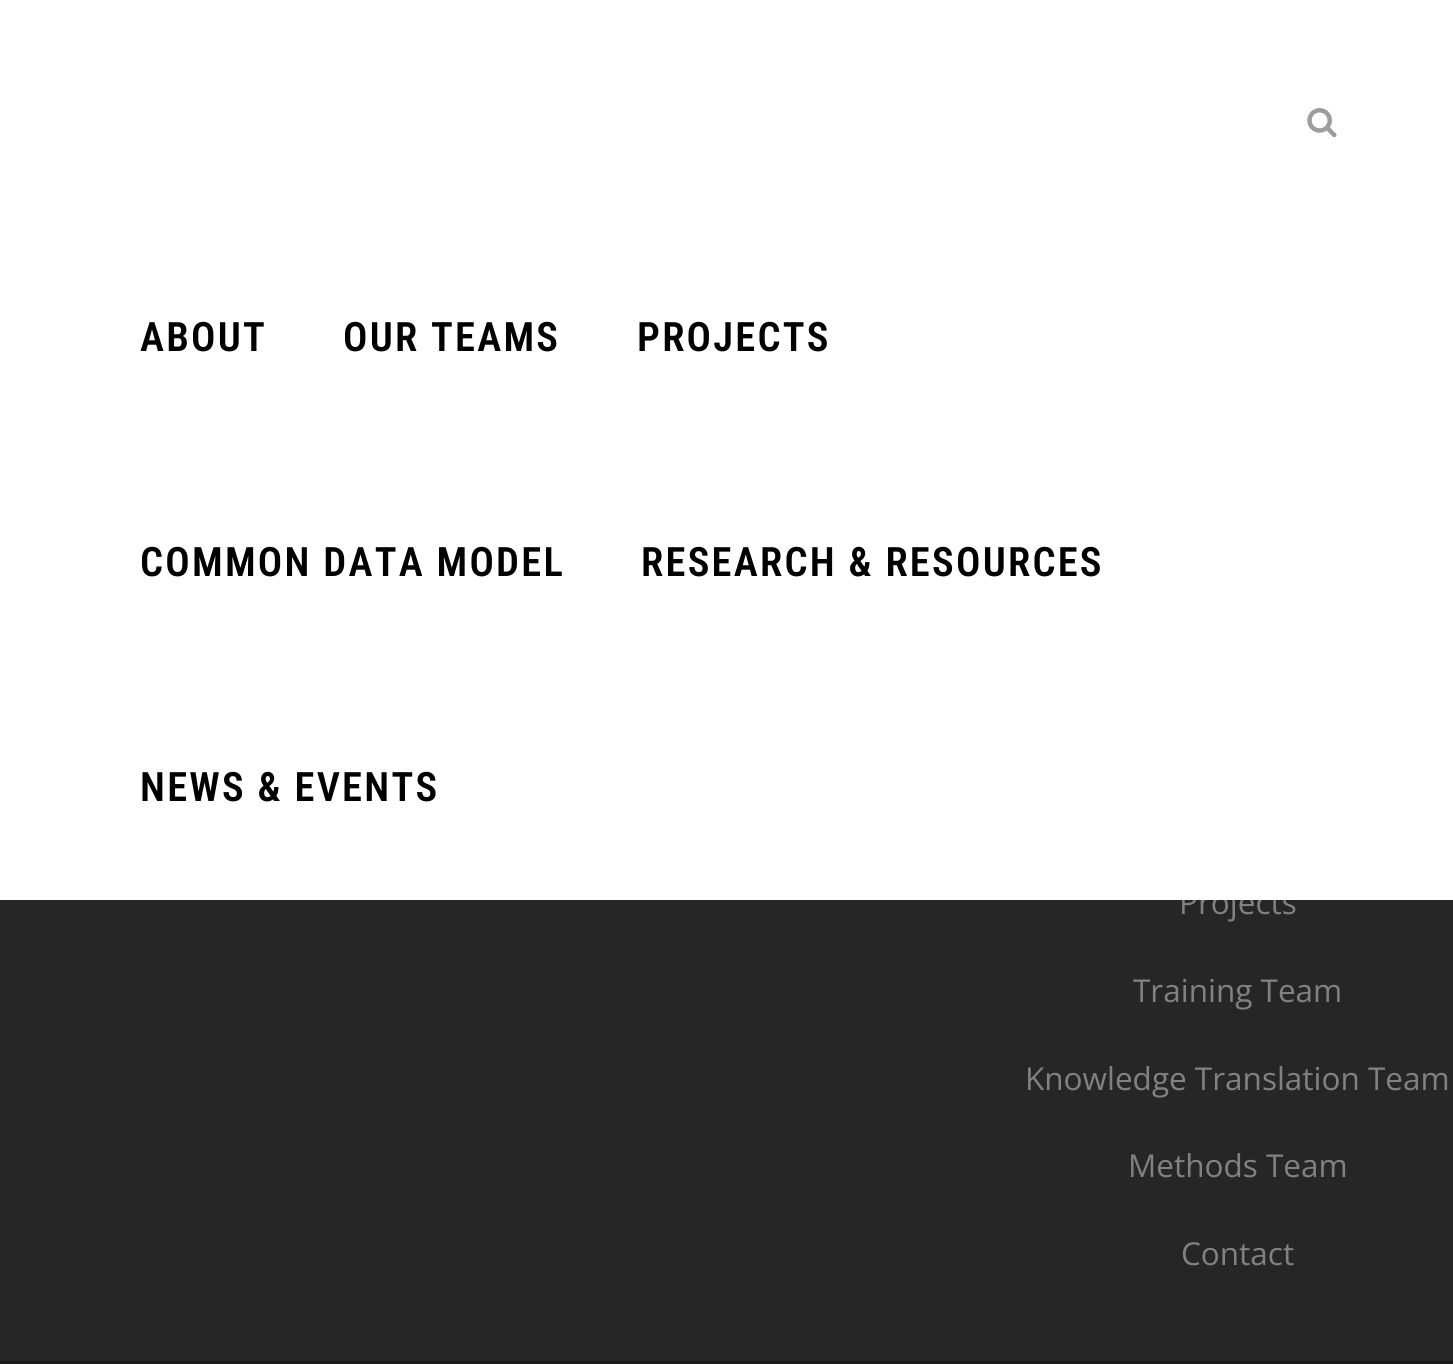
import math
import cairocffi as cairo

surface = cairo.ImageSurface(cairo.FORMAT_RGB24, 1453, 1364)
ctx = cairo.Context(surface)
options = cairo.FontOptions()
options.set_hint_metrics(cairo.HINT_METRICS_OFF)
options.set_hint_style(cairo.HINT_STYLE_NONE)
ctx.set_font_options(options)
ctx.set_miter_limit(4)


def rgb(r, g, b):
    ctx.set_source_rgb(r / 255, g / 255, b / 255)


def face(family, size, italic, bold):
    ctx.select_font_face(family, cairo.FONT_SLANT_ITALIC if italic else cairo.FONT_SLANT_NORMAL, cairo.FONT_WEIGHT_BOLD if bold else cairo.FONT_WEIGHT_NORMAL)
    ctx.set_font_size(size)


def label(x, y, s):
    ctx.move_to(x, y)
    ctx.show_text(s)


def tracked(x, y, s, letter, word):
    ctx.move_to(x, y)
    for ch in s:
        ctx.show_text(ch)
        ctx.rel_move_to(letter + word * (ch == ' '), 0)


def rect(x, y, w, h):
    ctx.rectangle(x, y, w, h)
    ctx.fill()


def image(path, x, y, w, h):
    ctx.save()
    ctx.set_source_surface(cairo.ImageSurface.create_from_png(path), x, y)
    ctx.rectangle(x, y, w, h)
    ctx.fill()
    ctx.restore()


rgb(27, 27, 27)
ctx.paint()
rgb(38, 38, 38)
rect(0, 900, 1453, 461)
face('Open Sans', 31.5, 0, 0)
rgb(129, 129, 129)
label(1179, 914, 'Projects')
rgb(255, 255, 255)
rect(0, 0, 1453, 900)
image('image0.png', 1307, 108, 30, 30)
face('Roboto Condensed SemiBold', 40.5, 0, 0)
rgb(0, 0, 0)
tracked(140, 351, 'ABOUT', 2.25, 0)
tracked(343, 351, 'OUR TEAMS', 2.25, 0)
tracked(637, 351, 'PROJECTS', 2.25, 0)
tracked(140, 576, 'COMMON DATA MODEL', 2.25, 0)
tracked(641, 576, 'RESEARCH & RESOURCES', 2.25, 0)
tracked(140, 801, 'NEWS & EVENTS', 2.25, 0)
face('Open Sans', 31.5, 0, 0)
rgb(129, 129, 129)
label(1133, 1002, 'Training Team')
label(1025, 1090, 'Knowledge Translation Team')
label(1128, 1177, 'Methods Team')
label(1181, 1265, 'Contact')
surface.write_to_png('render.png')
